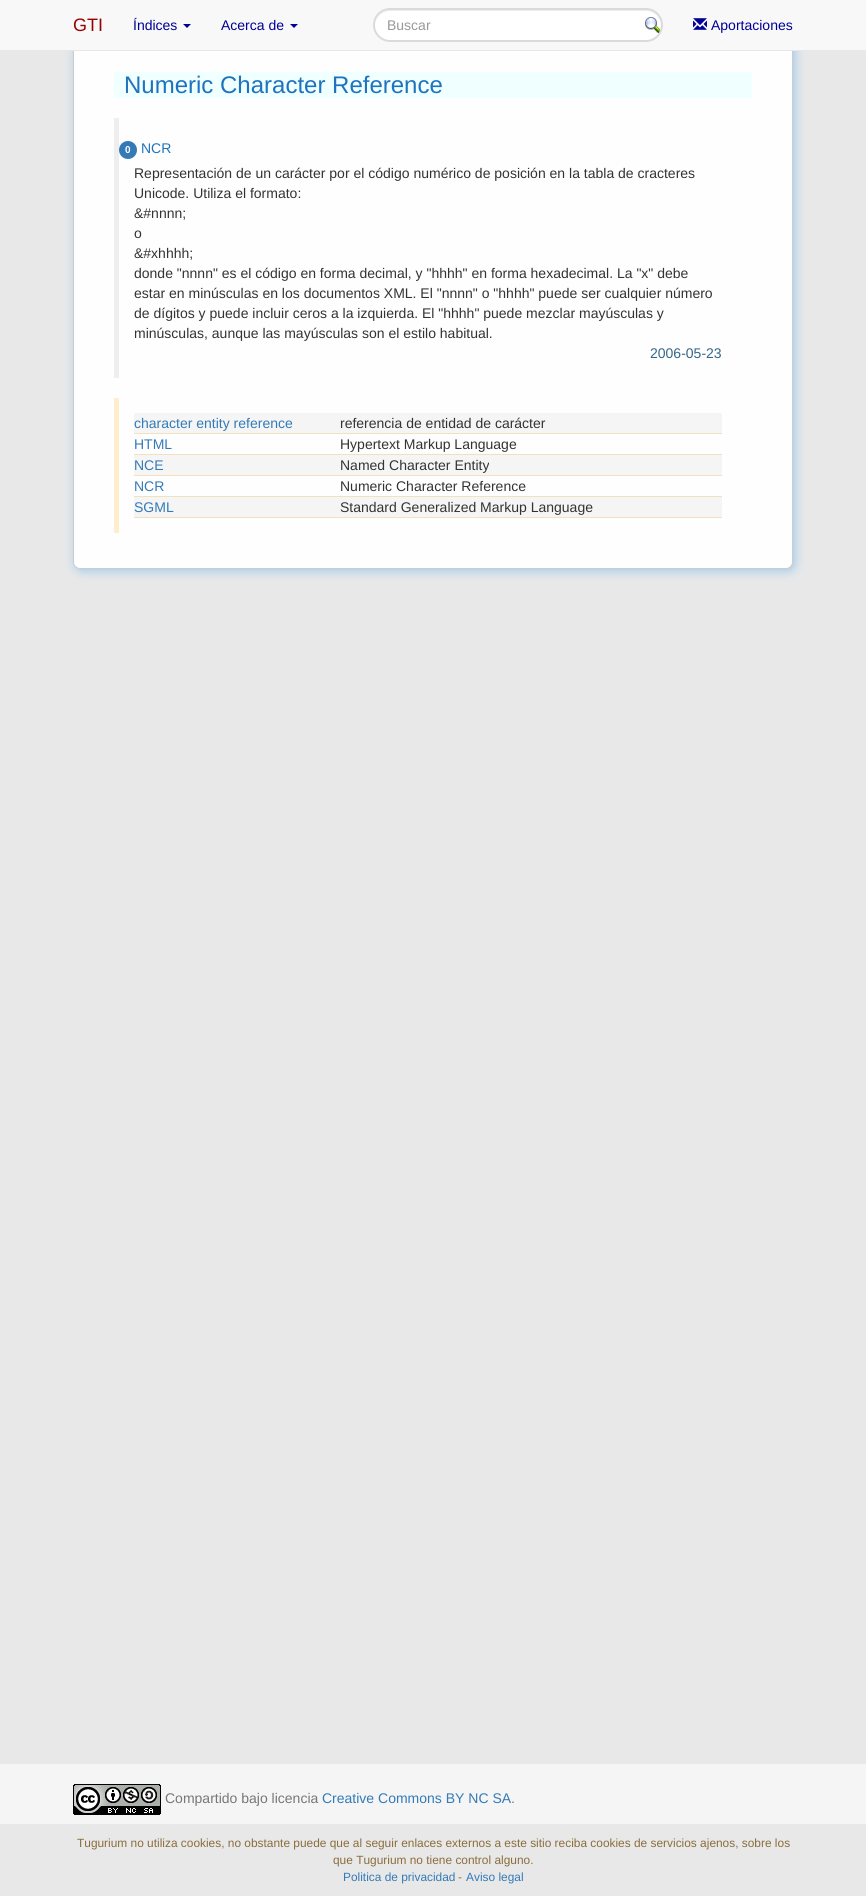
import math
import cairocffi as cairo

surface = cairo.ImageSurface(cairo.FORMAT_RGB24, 866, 1896)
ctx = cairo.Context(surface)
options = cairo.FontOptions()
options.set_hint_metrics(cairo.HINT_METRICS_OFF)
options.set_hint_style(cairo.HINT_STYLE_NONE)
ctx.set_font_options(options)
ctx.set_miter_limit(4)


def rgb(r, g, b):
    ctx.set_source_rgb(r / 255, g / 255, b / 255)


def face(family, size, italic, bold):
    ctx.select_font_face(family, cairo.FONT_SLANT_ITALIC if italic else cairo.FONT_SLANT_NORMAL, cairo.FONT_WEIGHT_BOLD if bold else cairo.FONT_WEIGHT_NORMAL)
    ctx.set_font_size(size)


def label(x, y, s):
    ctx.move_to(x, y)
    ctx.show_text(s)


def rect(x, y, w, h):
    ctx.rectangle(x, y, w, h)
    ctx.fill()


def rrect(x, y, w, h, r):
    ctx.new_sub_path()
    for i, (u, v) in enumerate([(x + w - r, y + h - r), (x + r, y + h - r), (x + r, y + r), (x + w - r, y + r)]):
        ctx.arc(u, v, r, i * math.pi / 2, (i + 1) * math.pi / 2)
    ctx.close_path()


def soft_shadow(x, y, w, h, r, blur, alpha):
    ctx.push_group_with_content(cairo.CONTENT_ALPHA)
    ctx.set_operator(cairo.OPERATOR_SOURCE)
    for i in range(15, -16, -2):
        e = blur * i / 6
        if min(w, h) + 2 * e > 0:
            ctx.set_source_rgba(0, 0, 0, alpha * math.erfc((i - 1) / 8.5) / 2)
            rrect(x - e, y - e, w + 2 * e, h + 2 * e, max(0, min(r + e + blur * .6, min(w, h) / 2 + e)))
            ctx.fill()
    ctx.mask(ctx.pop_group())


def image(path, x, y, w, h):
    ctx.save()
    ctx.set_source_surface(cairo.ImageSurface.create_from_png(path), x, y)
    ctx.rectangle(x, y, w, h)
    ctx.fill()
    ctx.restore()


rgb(232, 232, 232)
ctx.paint()
rgb(158, 202, 237)
soft_shadow(75, 43, 720, 528, 7, 5, 1)
rgb(254, 254, 254)
rrect(73.5, 41.5, 719, 527, 6.5)
ctx.fill_preserve()
rgb(204, 204, 204)
ctx.set_line_width(1)
ctx.stroke()
rgb(248, 248, 248)
rect(0, 0, 866, 50)
rgb(231, 231, 231)
rect(67, 50, 736, 1)
face('Liberation Sans', 18, 0, 0)
rgb(153, 0, 0)
label(73, 31, 'GTI')
face('Liberation Sans', 14, 0, 0)
rgb(0, 0, 153)
label(133, 30, 'Índices')
ctx.new_path()
ctx.move_to(183, 24)
ctx.line_to(191, 24)
ctx.line_to(187, 28)
ctx.close_path()
ctx.fill()
label(221, 30, 'Acerca de')
ctx.new_path()
ctx.move_to(290, 24)
ctx.line_to(298, 24)
ctx.line_to(294, 28)
ctx.close_path()
ctx.fill()
rgb(255, 255, 255)
rrect(373, 8, 290, 34, 17)
ctx.fill()
image('image0.png', 645, 17, 16, 16)
rgb(236, 236, 236)
ctx.new_path()
ctx.move_to(390, 11)
ctx.line_to(646, 11)
ctx.curve_to(654, 11, 661, 18, 661, 26)
ctx.curve_to(661, 17, 654, 10, 646, 10)
ctx.line_to(390, 10)
ctx.curve_to(382, 10, 375, 17, 375, 26)
ctx.curve_to(375, 18, 382, 11, 390, 11)
ctx.close_path()
ctx.fill()
rrect(374, 9, 288, 32, 16)
rgb(218, 218, 218)
ctx.set_line_width(2)
ctx.stroke()
rgb(153, 153, 153)
label(387, 30, 'Buscar')
image('image1.png', 693, 18, 14, 12)
rgb(0, 0, 153)
label(711, 30, 'Aportaciones')
rgb(240, 255, 255)
rect(114, 72, 638, 26)
face('Liberation Sans', 24, 0, 0)
rgb(30, 115, 190)
label(124, 93, 'Numeric Character Reference')
rgb(238, 238, 238)
rect(114, 118, 5, 260)
rgb(51, 122, 183)
ctx.new_path()
ctx.arc(128, 150, 9, 0, 2 * math.pi)
ctx.fill()
face('Liberation Sans', 10, 0, 1)
rgb(255, 255, 255)
label(125, 153, '0')
face('Liberation Sans', 14, 0, 0)
rgb(30, 115, 190)
label(141, 153, 'NCR')
rgb(51, 51, 51)
label(134, 178, 'Representación de un carácter por el código numérico de posición en la tabla de cracteres')
label(134, 198, 'Unicode. Utiliza el formato:')
label(134, 218, '&#nnnn;')
label(134, 238, 'o')
label(134, 258, '&#xhhhh;')
label(134, 278, 'donde "nnnn" es el código en forma decimal, y "hhhh" en forma hexadecimal. La "x" debe')
label(134, 298, 'estar en minúsculas en los documentos XML. El "nnnn" o "hhhh" puede ser cualquier número')
label(134, 318, 'de dígitos y puede incluir ceros a la izquierda. El "hhhh" puede mezclar mayúsculas y')
label(134, 338, 'minúsculas, aunque las mayúsculas son el estilo habitual.')
rgb(51, 102, 136)
label(650, 358, '2006-05-23')
rgb(255, 238, 204)
rect(114, 398, 5, 135)
rgb(245, 245, 245)
rect(134, 413, 588, 20)
rgb(242, 225, 191)
rect(134, 433, 588, 1)
rgb(51, 122, 183)
label(134, 428, 'character entity reference')
rgb(51, 51, 51)
label(340, 428, 'referencia de entidad de carácter')
rgb(242, 225, 191)
rect(134, 454, 588, 1)
rgb(51, 122, 183)
label(134, 449, 'HTML')
rgb(51, 51, 51)
label(340, 449, 'Hypertext Markup Language')
rgb(245, 245, 245)
rect(134, 455, 588, 20)
rgb(242, 225, 191)
rect(134, 475, 588, 1)
rgb(51, 122, 183)
label(134, 470, 'NCE')
rgb(51, 51, 51)
label(340, 470, 'Named Character Entity')
rgb(242, 225, 191)
rect(134, 496, 588, 1)
rgb(51, 122, 183)
label(134, 491, 'NCR')
rgb(51, 51, 51)
label(340, 491, 'Numeric Character Reference')
rgb(245, 245, 245)
rect(134, 497, 588, 20)
rgb(242, 225, 191)
rect(134, 517, 588, 1)
rgb(51, 122, 183)
label(134, 512, 'SGML')
rgb(51, 51, 51)
label(340, 512, 'Standard Generalized Markup Language')
rgb(245, 245, 245)
rect(0, 1764, 866, 60)
image('image2.png', 73, 1784, 88, 31)
rgb(119, 119, 119)
label(165, 1803, 'Compartido bajo licencia')
rgb(51, 122, 183)
label(322, 1803, 'Creative Commons BY NC SA')
rgb(119, 119, 119)
label(511, 1803, '.')
face('Liberation Sans', 11.9, 0, 0)
rgb(138, 109, 59)
label(77, 1847, 'Tugurium no utiliza cookies, no obstante puede que al seguir enlaces externos a este sitio reciba cookies de servicios ajenos, sobre los')
label(333, 1864, 'que Tugurium no tiene control alguno.')
rgb(51, 122, 183)
label(343, 1881, 'Politica de privacidad')
rgb(138, 109, 59)
label(458, 1881, '-')
rgb(51, 122, 183)
label(466, 1881, 'Aviso legal')
surface.write_to_png('render.png')
